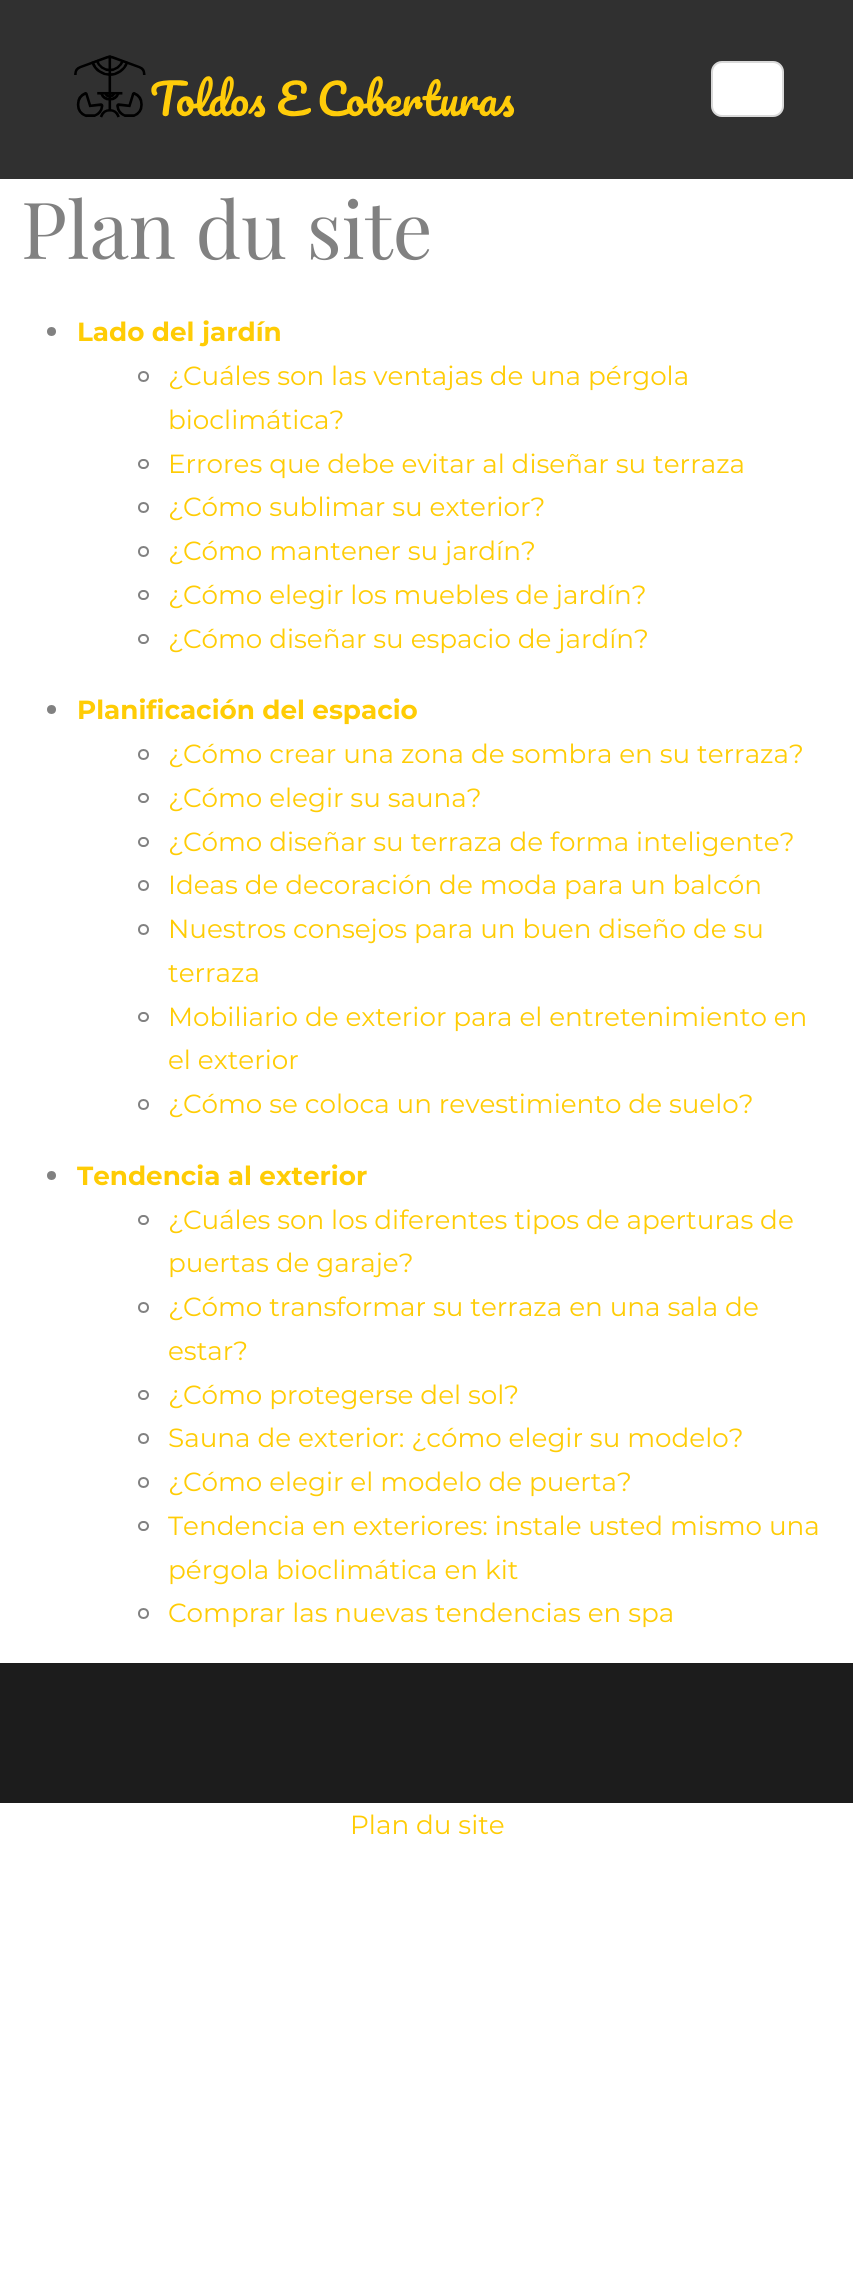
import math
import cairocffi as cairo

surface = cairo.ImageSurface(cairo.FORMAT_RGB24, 853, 2288)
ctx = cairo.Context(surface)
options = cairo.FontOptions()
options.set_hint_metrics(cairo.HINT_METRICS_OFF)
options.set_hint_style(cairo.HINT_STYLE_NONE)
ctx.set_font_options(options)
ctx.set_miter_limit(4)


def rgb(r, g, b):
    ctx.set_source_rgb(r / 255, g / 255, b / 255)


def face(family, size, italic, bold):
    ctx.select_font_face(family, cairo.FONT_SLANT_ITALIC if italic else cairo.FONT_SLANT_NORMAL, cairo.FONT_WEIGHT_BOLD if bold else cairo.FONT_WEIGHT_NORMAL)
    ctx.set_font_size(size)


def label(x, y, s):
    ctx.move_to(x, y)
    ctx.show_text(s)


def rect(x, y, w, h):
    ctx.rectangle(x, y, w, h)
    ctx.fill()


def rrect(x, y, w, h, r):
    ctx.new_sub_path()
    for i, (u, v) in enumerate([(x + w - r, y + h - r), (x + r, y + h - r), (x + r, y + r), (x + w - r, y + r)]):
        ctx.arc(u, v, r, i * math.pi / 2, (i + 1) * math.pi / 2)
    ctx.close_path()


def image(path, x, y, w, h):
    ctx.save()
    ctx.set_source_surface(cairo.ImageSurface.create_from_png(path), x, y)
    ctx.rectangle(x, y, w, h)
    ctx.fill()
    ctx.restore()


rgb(255, 255, 255)
ctx.paint()
rgb(48, 48, 48)
rect(0, 0, 853, 179)
image('image0.png', 74, 55, 441, 63)
rgb(255, 255, 255)
rrect(711, 61, 73, 56, 11)
ctx.fill()
rrect(712, 62, 71, 54, 10)
ctx.set_source_rgba(0, 0, 0, 0.15)
ctx.stroke()
face('Playfair Display', 78.75, 0, 0)
rgb(129, 129, 129)
label(21, 259, 'Plan du site')
ctx.new_path()
ctx.arc(51.5, 331.5, 4.5, 0, 2 * math.pi)
ctx.fill()
face('Montserrat', 26.25, 0, 1)
rgb(255, 204, 5)
label(77, 341, 'Lado del jardín')
ctx.new_path()
ctx.arc(143.5, 376.5, 4.5, 0, 2 * math.pi)
rgb(129, 129, 129)
ctx.stroke()
face('Montserrat', 26.25, 0, 0)
rgb(255, 204, 5)
label(168, 385, '¿Cuáles son las ventajas de una pérgola')
label(168, 429, 'bioclimática?')
rrect(139, 460, 9, 8, 4)
rgb(129, 129, 129)
ctx.stroke()
rgb(255, 204, 5)
label(168, 473, 'Errores que debe evitar al diseñar su terraza')
ctx.new_path()
ctx.arc(143.5, 507.5, 4.5, 0, 2 * math.pi)
rgb(129, 129, 129)
ctx.stroke()
rgb(255, 204, 5)
label(168, 516, '¿Cómo sublimar su exterior?')
ctx.new_path()
ctx.arc(143.5, 551.5, 4.5, 0, 2 * math.pi)
rgb(129, 129, 129)
ctx.stroke()
rgb(255, 204, 5)
label(168, 560, '¿Cómo mantener su jardín?')
rrect(139, 591, 9, 8, 4)
rgb(129, 129, 129)
ctx.stroke()
rgb(255, 204, 5)
label(168, 604, '¿Cómo elegir los muebles de jardín?')
rrect(139, 635, 9, 8, 4)
rgb(129, 129, 129)
ctx.stroke()
rgb(255, 204, 5)
label(168, 648, '¿Cómo diseñar su espacio de jardín?')
rgb(129, 129, 129)
ctx.new_path()
ctx.arc(51.5, 709.5, 4.5, 0, 2 * math.pi)
ctx.fill()
face('Montserrat', 26.25, 0, 1)
rgb(255, 204, 5)
label(77, 719, 'Planificación del espacio')
ctx.new_path()
ctx.arc(143.5, 754.5, 4.5, 0, 2 * math.pi)
rgb(129, 129, 129)
ctx.stroke()
face('Montserrat', 26.25, 0, 0)
rgb(255, 204, 5)
label(168, 763, '¿Cómo crear una zona de sombra en su terraza?')
rrect(139, 794, 9, 8, 4)
rgb(129, 129, 129)
ctx.stroke()
rgb(255, 204, 5)
label(168, 807, '¿Cómo elegir su sauna?')
rrect(139, 838, 9, 8, 4)
rgb(129, 129, 129)
ctx.stroke()
rgb(255, 204, 5)
label(168, 851, '¿Cómo diseñar su terraza de forma inteligente?')
ctx.new_path()
ctx.arc(143.5, 885.5, 4.5, 0, 2 * math.pi)
rgb(129, 129, 129)
ctx.stroke()
rgb(255, 204, 5)
label(168, 894, 'Ideas de decoración de moda para un balcón')
ctx.new_path()
ctx.arc(143.5, 929.5, 4.5, 0, 2 * math.pi)
rgb(129, 129, 129)
ctx.stroke()
rgb(255, 204, 5)
label(168, 938, 'Nuestros consejos para un buen diseño de su')
label(168, 982, 'terraza')
rrect(139, 1013, 9, 8, 4)
rgb(129, 129, 129)
ctx.stroke()
rgb(255, 204, 5)
label(168, 1026, 'Mobiliario de exterior para el entretenimiento en')
label(168, 1069, 'el exterior')
ctx.new_path()
ctx.arc(143.5, 1104.5, 4.5, 0, 2 * math.pi)
rgb(129, 129, 129)
ctx.stroke()
rgb(255, 204, 5)
label(168, 1113, '¿Cómo se coloca un revestimiento de suelo?')
rgb(129, 129, 129)
ctx.new_path()
ctx.arc(51.5, 1175.5, 4.5, 0, 2 * math.pi)
ctx.fill()
face('Montserrat', 26.25, 0, 1)
rgb(255, 204, 5)
label(77, 1185, 'Tendencia al exterior')
rrect(139, 1216, 9, 8, 4)
rgb(129, 129, 129)
ctx.stroke()
face('Montserrat', 26.25, 0, 0)
rgb(255, 204, 5)
label(168, 1229, '¿Cuáles son los diferentes tipos de aperturas de')
label(168, 1272, 'puertas de garaje?')
ctx.new_path()
ctx.arc(143.5, 1307.5, 4.5, 0, 2 * math.pi)
rgb(129, 129, 129)
ctx.stroke()
rgb(255, 204, 5)
label(168, 1316, '¿Cómo transformar su terraza en una sala de')
label(168, 1360, 'estar?')
rrect(139, 1391, 9, 8, 4)
rgb(129, 129, 129)
ctx.stroke()
rgb(255, 204, 5)
label(168, 1404, '¿Cómo protegerse del sol?')
ctx.new_path()
ctx.arc(143.5, 1438.5, 4.5, 0, 2 * math.pi)
rgb(129, 129, 129)
ctx.stroke()
rgb(255, 204, 5)
label(168, 1447, 'Sauna de exterior: ¿cómo elegir su modelo?')
ctx.new_path()
ctx.arc(143.5, 1482.5, 4.5, 0, 2 * math.pi)
rgb(129, 129, 129)
ctx.stroke()
rgb(255, 204, 5)
label(168, 1491, '¿Cómo elegir el modelo de puerta?')
rrect(139, 1522, 9, 8, 4)
rgb(129, 129, 129)
ctx.stroke()
rgb(255, 204, 5)
label(168, 1535, 'Tendencia en exteriores: instale usted mismo una')
label(168, 1579, 'pérgola bioclimática en kit')
ctx.new_path()
ctx.arc(143.5, 1613.5, 4.5, 0, 2 * math.pi)
rgb(129, 129, 129)
ctx.stroke()
rgb(255, 204, 5)
label(168, 1622, 'Comprar las nuevas tendencias en spa')
rgb(28, 28, 28)
rect(0, 1663, 853, 140)
rgb(255, 204, 5)
label(350, 1834, 'Plan du site')
surface.write_to_png('render.png')
